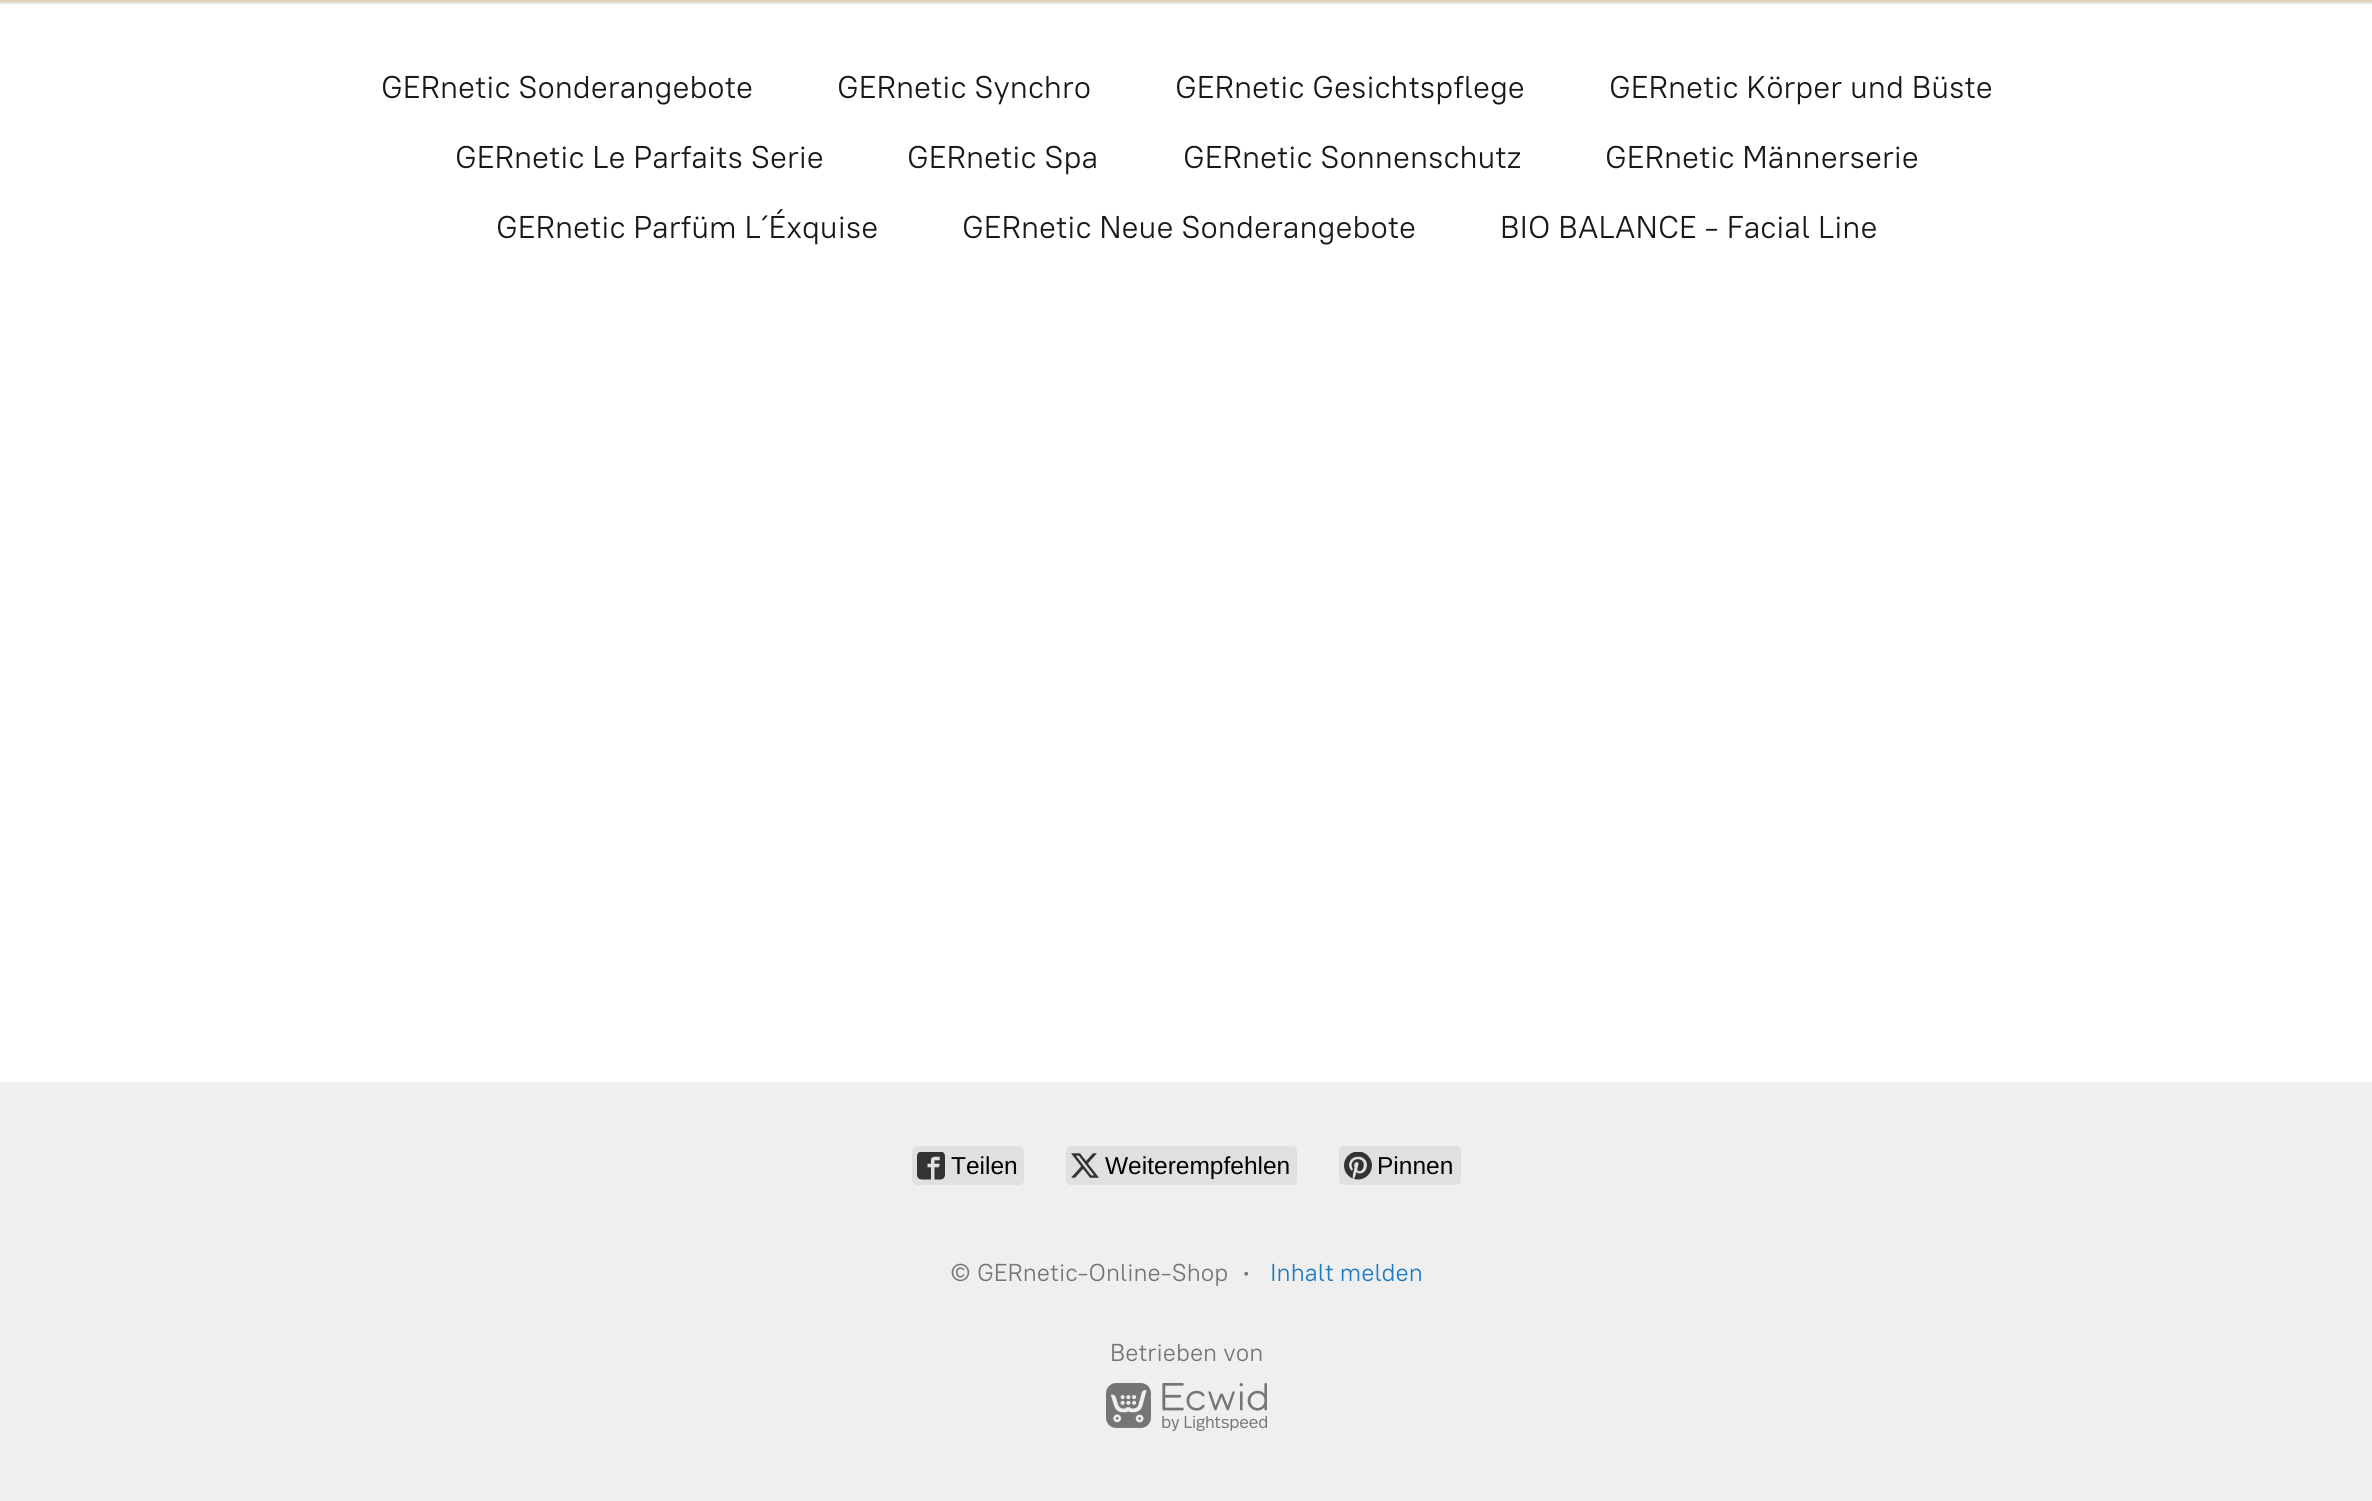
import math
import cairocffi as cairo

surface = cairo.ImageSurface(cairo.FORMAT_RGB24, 2372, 1501)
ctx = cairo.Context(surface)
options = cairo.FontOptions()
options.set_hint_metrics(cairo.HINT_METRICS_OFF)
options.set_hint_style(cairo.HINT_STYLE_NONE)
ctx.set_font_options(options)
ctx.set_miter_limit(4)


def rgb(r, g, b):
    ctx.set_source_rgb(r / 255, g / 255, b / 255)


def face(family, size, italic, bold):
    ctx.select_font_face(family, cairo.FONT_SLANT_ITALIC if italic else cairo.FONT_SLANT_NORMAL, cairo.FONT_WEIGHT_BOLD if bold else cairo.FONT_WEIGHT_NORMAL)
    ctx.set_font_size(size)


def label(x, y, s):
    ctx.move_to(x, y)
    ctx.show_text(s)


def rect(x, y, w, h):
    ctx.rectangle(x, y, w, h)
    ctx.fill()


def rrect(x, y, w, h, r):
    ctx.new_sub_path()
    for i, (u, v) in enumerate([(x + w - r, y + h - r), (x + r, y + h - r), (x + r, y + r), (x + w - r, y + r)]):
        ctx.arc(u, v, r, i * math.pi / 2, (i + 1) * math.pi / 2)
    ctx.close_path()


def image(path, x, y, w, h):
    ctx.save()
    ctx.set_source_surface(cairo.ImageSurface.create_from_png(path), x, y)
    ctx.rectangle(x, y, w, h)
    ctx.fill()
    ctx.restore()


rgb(255, 255, 255)
ctx.paint()
rgb(222, 211, 175)
rect(0, 0, 2372, 2)
rgb(230, 230, 230)
rect(0, 2, 2372, 2)
face('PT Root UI', 31.5, 0, 0)
rgb(25, 25, 25)
label(381, 98, 'GERnetic Sonderangebote')
label(837, 98, 'GERnetic Synchro')
label(1175, 98, 'GERnetic Gesichtspflege')
label(1609, 98, 'GERnetic Körper und Büste')
label(455, 168, 'GERnetic Le Parfaits Serie')
label(907, 168, 'GERnetic Spa')
label(1183, 168, 'GERnetic Sonnenschutz')
label(1605, 168, 'GERnetic Männerserie')
label(496, 238, 'GERnetic Parfüm L´Éxquise')
label(962, 238, 'GERnetic Neue Sonderangebote')
label(1500, 238, 'BIO BALANCE - Facial Line')
rgb(239, 239, 239)
rect(0, 1082, 2372, 419)
rgb(224, 224, 224)
rrect(912, 1146, 112, 39, 5)
ctx.fill()
image('image0.png', 917, 1152, 28, 28)
face('Liberation Sans', 24.5, 0, 0)
rgb(0, 0, 0)
label(951, 1174, 'Teilen')
rgb(224, 224, 224)
rrect(1066, 1146, 231, 39, 5)
ctx.fill()
image('image1.png', 1071, 1153, 28, 25)
rgb(0, 0, 0)
label(1105, 1174, 'Weiterempfehlen')
rgb(224, 224, 224)
rrect(1339, 1146, 122, 39, 5)
ctx.fill()
image('image2.png', 1344, 1152, 28, 28)
rgb(0, 0, 0)
label(1377, 1174, 'Pinnen')
face('PT Root UI', 24.5, 0, 0)
rgb(117, 117, 117)
label(950, 1281, '© GERnetic-Online-Shop')
face('PT Root UI Medium', 28, 0, 0)
label(1242, 1281, '·')
face('PT Root UI', 24.5, 0, 0)
rgb(26, 122, 196)
label(1270, 1281, 'Inhalt melden')
rgb(117, 117, 117)
label(1110, 1361, 'Betrieben von')
image('image3.png', 1106, 1383, 161, 48)
surface.write_to_png('render.png')
